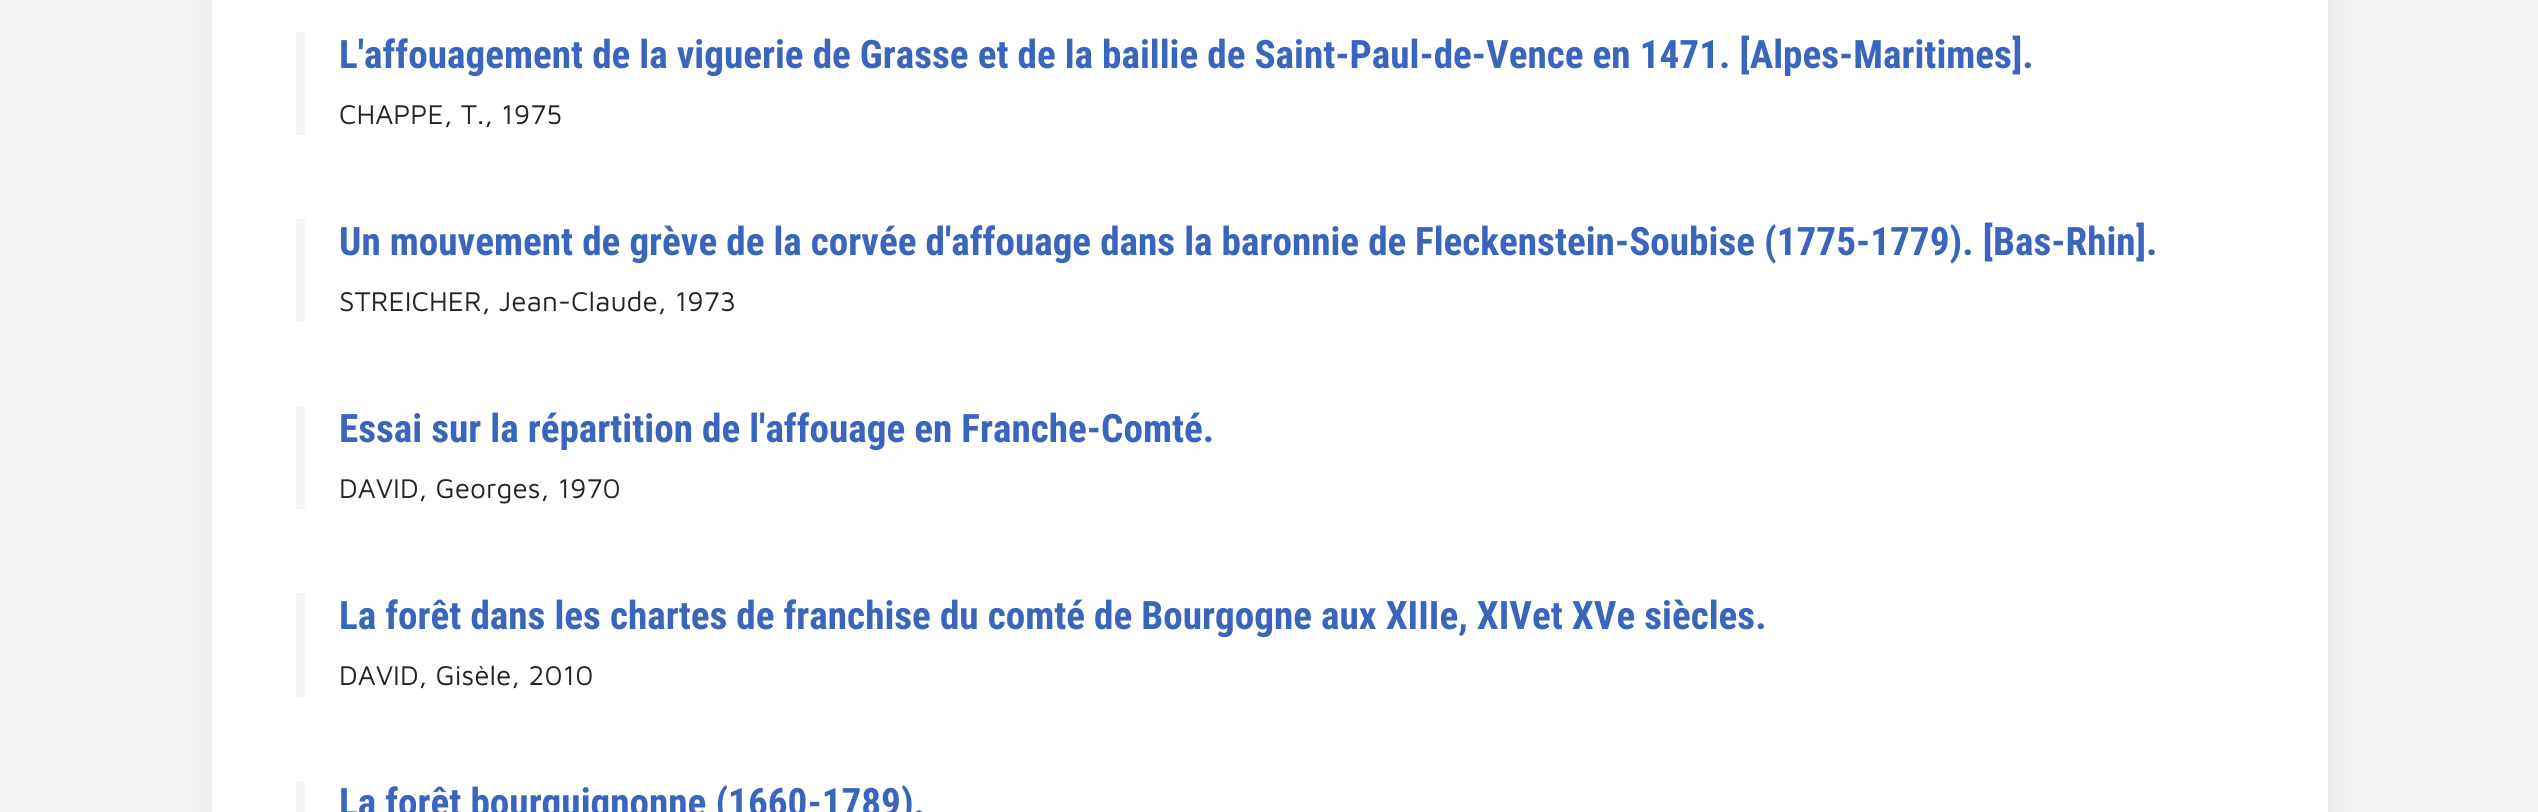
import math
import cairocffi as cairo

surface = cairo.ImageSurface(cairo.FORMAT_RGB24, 2538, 812)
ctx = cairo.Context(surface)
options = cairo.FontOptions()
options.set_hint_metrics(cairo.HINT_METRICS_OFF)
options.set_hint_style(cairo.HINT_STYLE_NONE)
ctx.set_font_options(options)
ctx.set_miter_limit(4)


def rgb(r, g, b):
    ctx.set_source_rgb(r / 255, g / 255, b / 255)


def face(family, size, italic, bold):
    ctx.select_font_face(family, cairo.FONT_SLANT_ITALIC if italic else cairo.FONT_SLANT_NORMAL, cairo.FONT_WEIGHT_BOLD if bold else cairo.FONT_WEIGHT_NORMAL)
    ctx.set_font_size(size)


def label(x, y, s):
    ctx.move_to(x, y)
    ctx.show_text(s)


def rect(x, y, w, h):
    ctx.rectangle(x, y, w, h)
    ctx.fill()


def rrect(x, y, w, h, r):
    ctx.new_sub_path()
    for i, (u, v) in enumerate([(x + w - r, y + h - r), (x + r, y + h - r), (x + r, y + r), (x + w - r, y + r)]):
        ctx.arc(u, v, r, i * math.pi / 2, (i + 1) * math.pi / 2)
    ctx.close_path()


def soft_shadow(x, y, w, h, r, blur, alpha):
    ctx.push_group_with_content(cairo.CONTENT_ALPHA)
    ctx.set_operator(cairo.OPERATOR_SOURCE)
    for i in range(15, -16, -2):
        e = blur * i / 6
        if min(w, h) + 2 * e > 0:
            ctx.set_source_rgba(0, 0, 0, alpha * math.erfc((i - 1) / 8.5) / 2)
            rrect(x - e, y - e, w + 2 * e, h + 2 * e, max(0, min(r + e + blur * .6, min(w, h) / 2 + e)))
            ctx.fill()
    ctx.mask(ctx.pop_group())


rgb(244, 244, 244)
ctx.paint()
rgb(162, 162, 162)
soft_shadow(214, -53, 2115, 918, 0, 17.5, 0.17)
rgb(255, 255, 255)
rect(212, 0, 2116, 812)
rgb(244, 244, 244)
rect(296, 32, 9, 103)
face('Roboto Condensed', 39.2, 0, 1)
rgb(57, 101, 188)
label(339, 68, 'L\'affouagement de la viguerie de Grasse et de la baillie de Saint-Paul-de-Vence en 1471. [Alpes-Maritimes].')
face('Maven Pro', 28, 0, 0)
rgb(33, 37, 41)
label(339, 124, 'CHAPPE, T., 1975')
rgb(244, 244, 244)
rect(296, 219, 9, 103)
face('Roboto Condensed', 39.2, 0, 1)
rgb(57, 101, 188)
label(339, 255, 'Un mouvement de grève de la corvée d\'affouage dans la baronnie de')
label(1415, 255, 'Fleckenstein-Soubise (1775-1779). [Bas-Rhin].')
face('Maven Pro', 28, 0, 0)
rgb(33, 37, 41)
label(339, 311, 'STREICHER, Jean-Claude, 1973')
rgb(244, 244, 244)
rect(296, 406, 9, 103)
face('Roboto Condensed', 39.2, 0, 1)
rgb(57, 101, 188)
label(339, 442, 'Essai sur la répartition de l\'affouage en Franche-Comté.')
face('Maven Pro', 28, 0, 0)
rgb(33, 37, 41)
label(339, 498, 'DAVID, Georges, 1970')
rgb(244, 244, 244)
rect(296, 593, 9, 104)
face('Roboto Condensed', 39.2, 0, 1)
rgb(57, 101, 188)
label(339, 629, 'La forêt dans les chartes de franchise du comté de Bourgogne aux XIIIe, XIVet XVe siècles.')
face('Maven Pro', 28, 0, 0)
rgb(33, 37, 41)
label(339, 685, 'DAVID, Gisèle, 2010')
rgb(244, 244, 244)
rect(296, 781, 9, 31)
face('Roboto Condensed', 39.2, 0, 1)
rgb(57, 101, 188)
label(339, 816, 'La forêt bourguignonne (1660-1789).')
surface.write_to_png('render.png')
